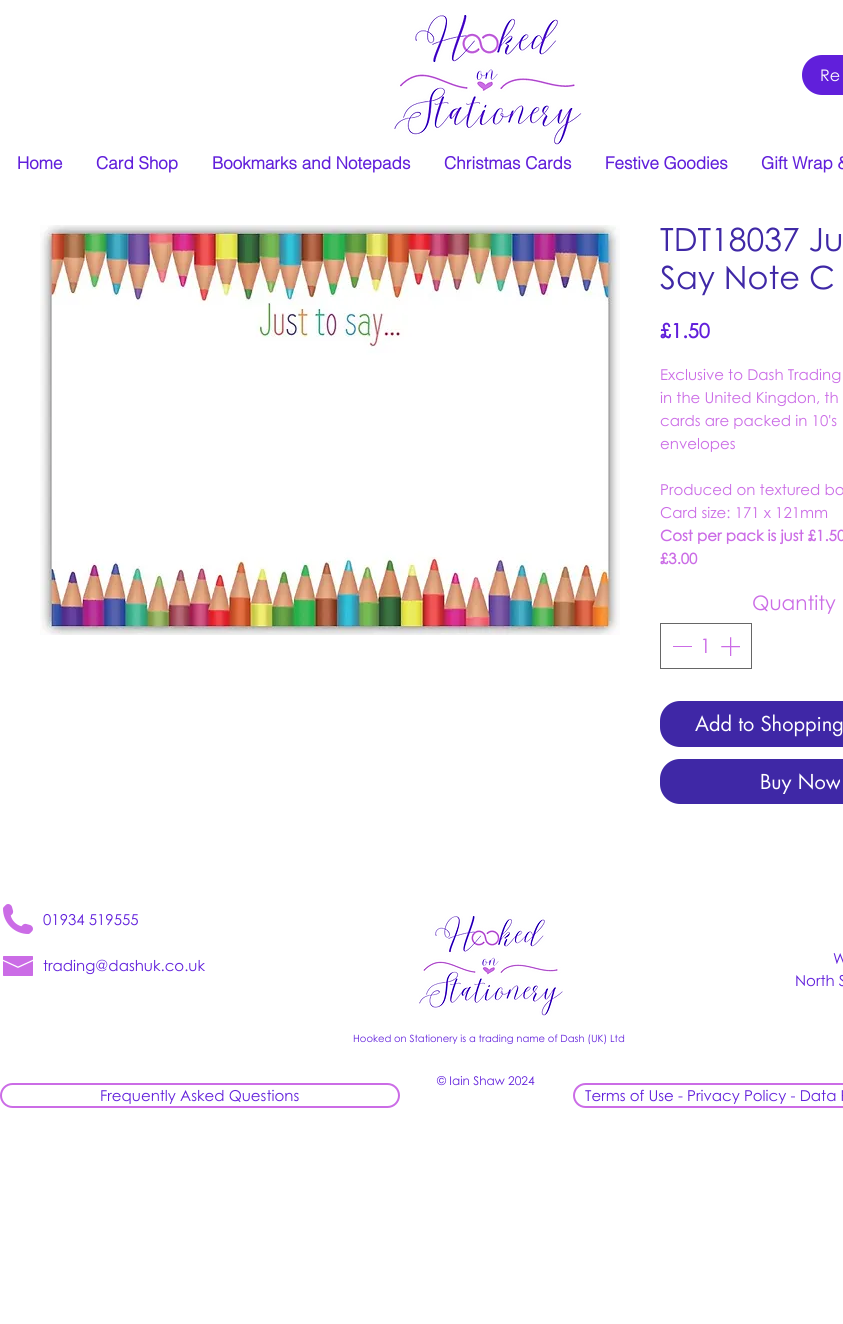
import math
import cairocffi as cairo

surface = cairo.ImageSurface(cairo.FORMAT_RGB24, 843, 1324)
ctx = cairo.Context(surface)
options = cairo.FontOptions()
options.set_hint_metrics(cairo.HINT_METRICS_OFF)
options.set_hint_style(cairo.HINT_STYLE_NONE)
ctx.set_font_options(options)
ctx.set_miter_limit(4)


def rgb(r, g, b):
    ctx.set_source_rgb(r / 255, g / 255, b / 255)


def face(family, size, italic, bold):
    ctx.select_font_face(family, cairo.FONT_SLANT_ITALIC if italic else cairo.FONT_SLANT_NORMAL, cairo.FONT_WEIGHT_BOLD if bold else cairo.FONT_WEIGHT_NORMAL)
    ctx.set_font_size(size)


def label(x, y, s):
    ctx.move_to(x, y)
    ctx.show_text(s)


def rect(x, y, w, h):
    ctx.rectangle(x, y, w, h)
    ctx.fill()


def rrect(x, y, w, h, r):
    ctx.new_sub_path()
    for i, (u, v) in enumerate([(x + w - r, y + h - r), (x + r, y + h - r), (x + r, y + r), (x + w - r, y + r)]):
        ctx.arc(u, v, r, i * math.pi / 2, (i + 1) * math.pi / 2)
    ctx.close_path()


def image(path, x, y, w, h):
    ctx.save()
    ctx.set_source_surface(cairo.ImageSurface.create_from_png(path), x, y)
    ctx.rectangle(x, y, w, h)
    ctx.fill()
    ctx.restore()


rgb(255, 255, 255)
ctx.paint()
image('image0.png', 394, 15, 188, 130)
rgb(97, 31, 219)
rrect(802, 55, 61, 40, 20)
ctx.fill()
face('Century Gothic', 16, 0, 0)
rgb(255, 255, 255)
label(820, 81, 'Re')
face('helvetica', 17, 0, 1)
rgb(97, 31, 219)
label(17, 169, 'Home')
label(96, 169, 'Card Shop')
label(212, 169, 'Bookmarks and Notepads')
label(444, 169, 'Christmas Cards')
label(605, 169, 'Festive Goodies')
label(761, 169, 'Gift Wrap &')
image('image1.png', 40, 225, 580, 410)
face('Century Gothic', 32, 0, 0)
rgb(63, 40, 166)
label(660, 251, 'TDT18037 Ju')
label(660, 289, 'Say Note C')
face('Century Gothic', 20, 0, 1)
rgb(97, 31, 219)
label(660, 338, '£1.50')
face('Century Gothic', 15, 0, 0)
rgb(203, 108, 230)
label(660, 380, 'Exclusive to Dash Trading')
label(660, 403, 'in the United Kingdon, th')
label(660, 426, 'cards are packed in 10\'s')
label(660, 449, 'envelopes')
label(660, 495, 'Produced on textured bo')
label(660, 518, 'Card size: 171 x 121mm')
face('Century Gothic', 15, 0, 1)
label(660, 541, 'Cost per pack is just £1.50')
label(660, 564, '£3.00')
face('Century Gothic', 20, 0, 0)
label(752, 610, 'Quantity')
ctx.rectangle(660.5, 623.5, 91, 45)
rgb(102, 102, 102)
ctx.set_line_width(1)
ctx.stroke()
rgb(203, 108, 230)
rect(673, 646, 19, 1)
label(700, 653, '1')
image('image2.png', 721, 637, 19, 19)
rgb(63, 39, 166)
rrect(660, 701, 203, 46, 20)
ctx.fill()
face('futura', 20, 0, 0)
rgb(255, 255, 255)
label(695, 731, 'Add to Shopping')
rgb(63, 40, 166)
rrect(660, 759, 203, 45, 20)
ctx.fill()
ctx.save()
ctx.rectangle(760, 769, 80, 25)
ctx.clip()
rgb(255, 255, 255)
label(760, 789, 'Buy Now')
ctx.restore()
image('image3.png', 3, 904, 30, 30)
face('Century Gothic', 15, 0, 0)
rgb(97, 31, 219)
label(43, 925, '01934 519555')
image('image4.png', 419, 916, 144, 100)
label(833, 964, 'W')
label(795, 986, 'North S')
image('image5.png', 3, 956, 30, 20)
label(43, 971, 'trading@dashuk.co.uk')
face('Century Gothic', 10, 0, 0)
label(353, 1042, 'Hooked on Stationery is a trading name of Dash (UK) Ltd')
face('Century Gothic', 12, 0, 0)
label(437, 1085, '© Iain Shaw 2024')
rrect(1, 1084, 398, 23, 11.5)
rgb(203, 108, 230)
ctx.set_line_width(2)
ctx.stroke()
face('Century Gothic', 15, 0, 0)
rgb(97, 31, 219)
label(100, 1101, 'Frequently Asked Questions')
rrect(574, 1084, 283, 23, 11.5)
rgb(203, 108, 230)
ctx.stroke()
rgb(97, 31, 219)
label(585, 1101, 'Terms of Use - Privacy Policy - Data P')
surface.write_to_png('render.png')
